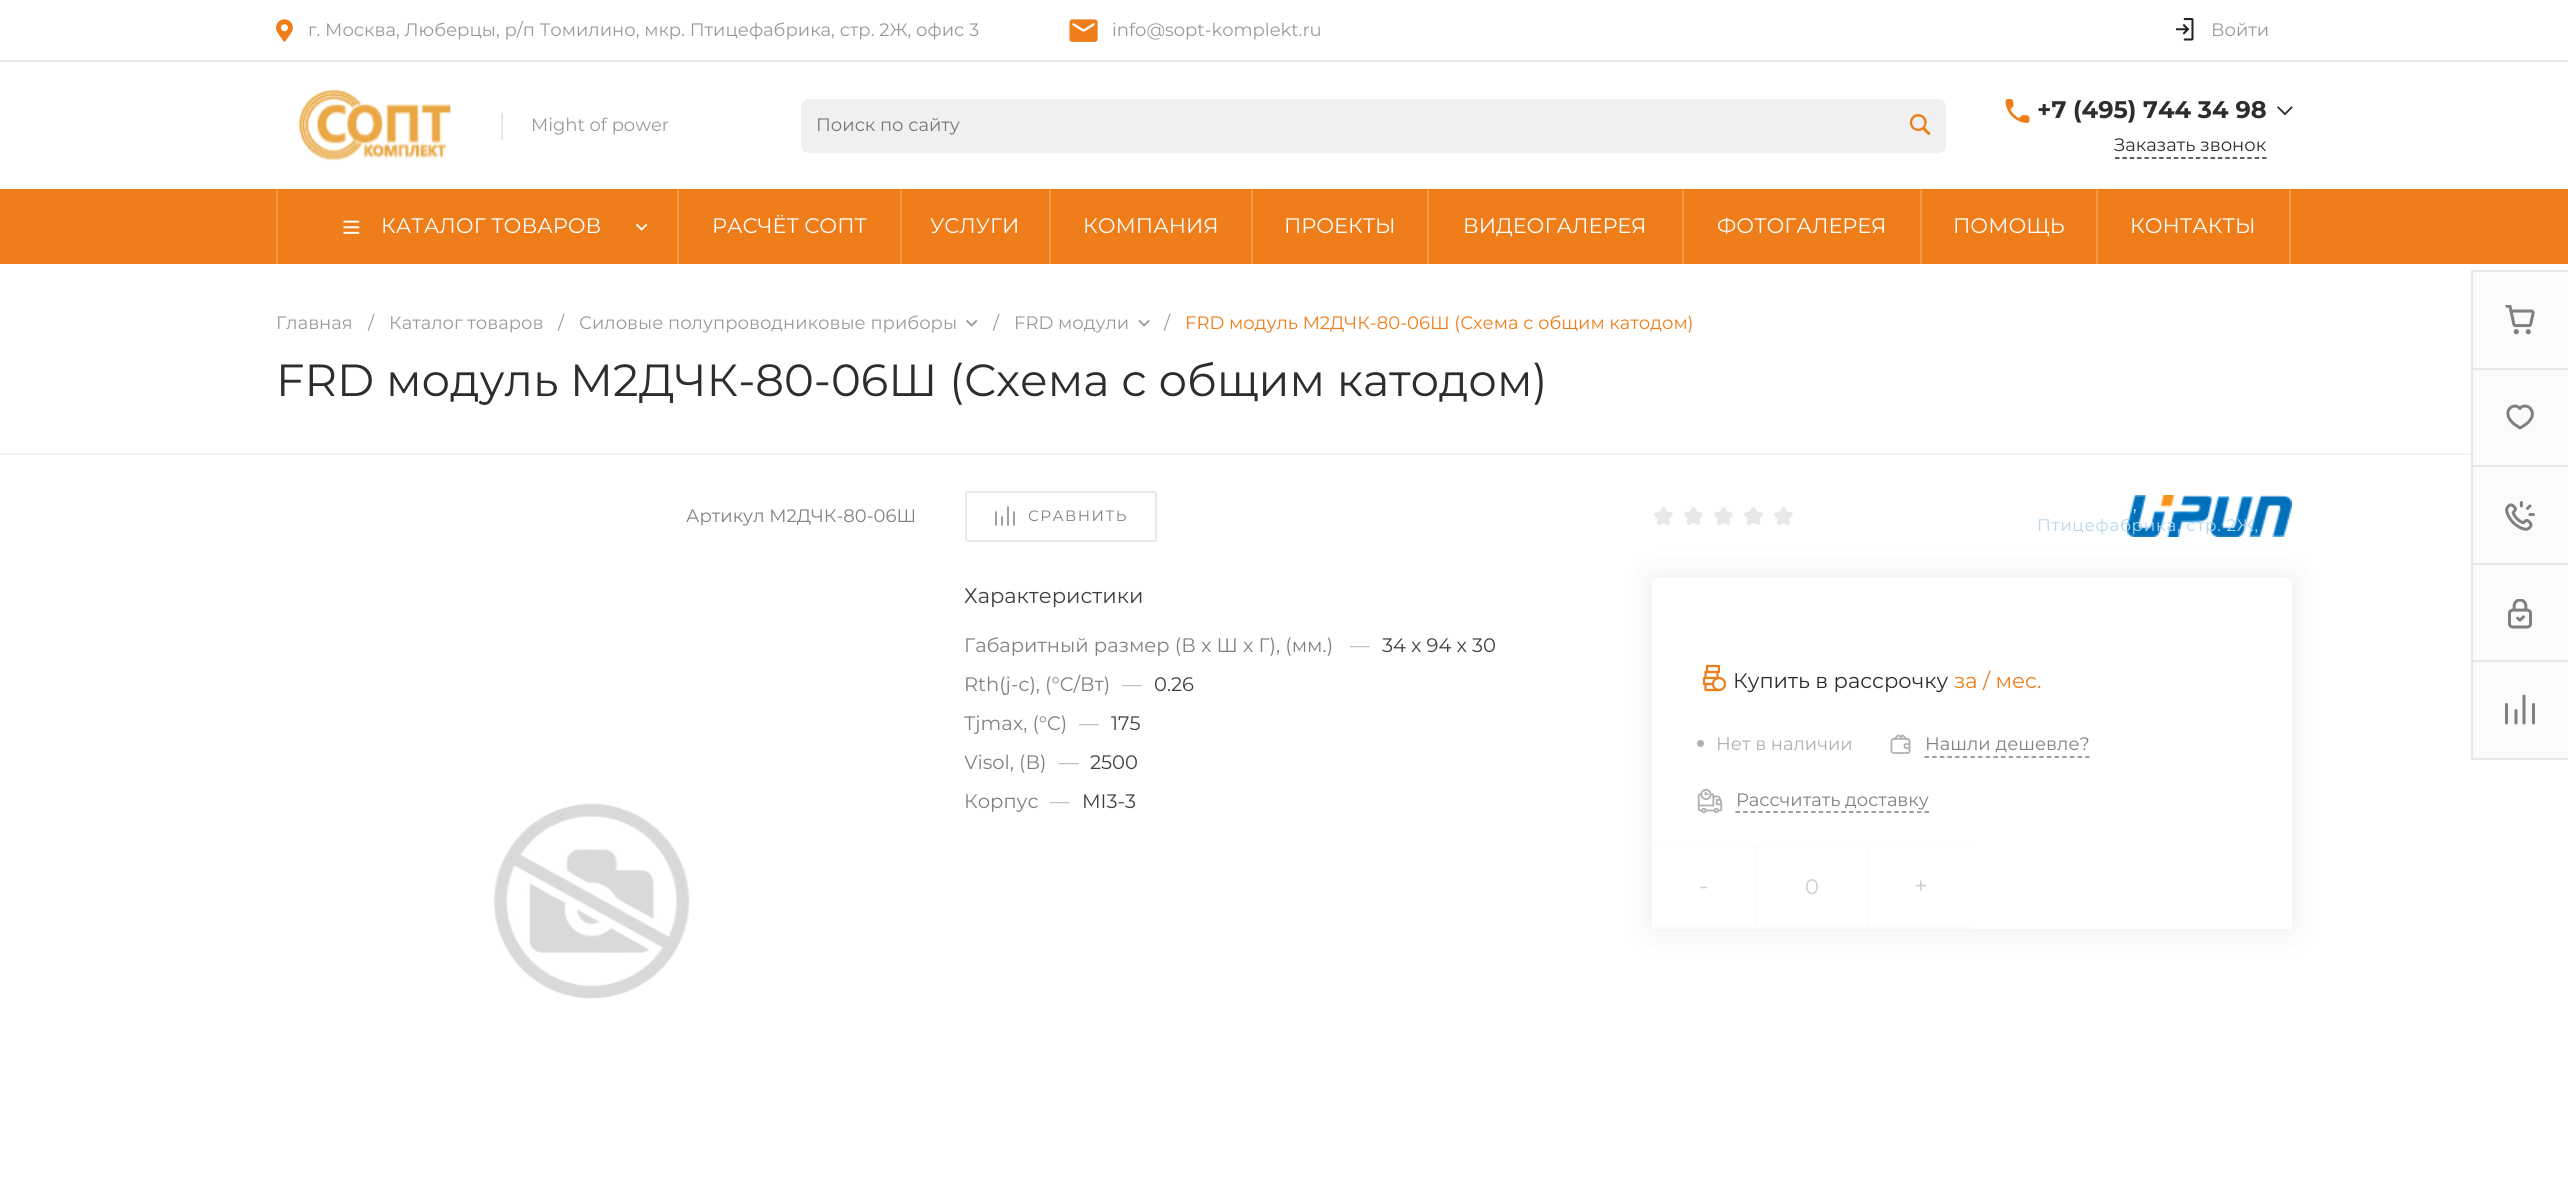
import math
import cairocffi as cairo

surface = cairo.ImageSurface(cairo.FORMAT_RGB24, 2568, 1178)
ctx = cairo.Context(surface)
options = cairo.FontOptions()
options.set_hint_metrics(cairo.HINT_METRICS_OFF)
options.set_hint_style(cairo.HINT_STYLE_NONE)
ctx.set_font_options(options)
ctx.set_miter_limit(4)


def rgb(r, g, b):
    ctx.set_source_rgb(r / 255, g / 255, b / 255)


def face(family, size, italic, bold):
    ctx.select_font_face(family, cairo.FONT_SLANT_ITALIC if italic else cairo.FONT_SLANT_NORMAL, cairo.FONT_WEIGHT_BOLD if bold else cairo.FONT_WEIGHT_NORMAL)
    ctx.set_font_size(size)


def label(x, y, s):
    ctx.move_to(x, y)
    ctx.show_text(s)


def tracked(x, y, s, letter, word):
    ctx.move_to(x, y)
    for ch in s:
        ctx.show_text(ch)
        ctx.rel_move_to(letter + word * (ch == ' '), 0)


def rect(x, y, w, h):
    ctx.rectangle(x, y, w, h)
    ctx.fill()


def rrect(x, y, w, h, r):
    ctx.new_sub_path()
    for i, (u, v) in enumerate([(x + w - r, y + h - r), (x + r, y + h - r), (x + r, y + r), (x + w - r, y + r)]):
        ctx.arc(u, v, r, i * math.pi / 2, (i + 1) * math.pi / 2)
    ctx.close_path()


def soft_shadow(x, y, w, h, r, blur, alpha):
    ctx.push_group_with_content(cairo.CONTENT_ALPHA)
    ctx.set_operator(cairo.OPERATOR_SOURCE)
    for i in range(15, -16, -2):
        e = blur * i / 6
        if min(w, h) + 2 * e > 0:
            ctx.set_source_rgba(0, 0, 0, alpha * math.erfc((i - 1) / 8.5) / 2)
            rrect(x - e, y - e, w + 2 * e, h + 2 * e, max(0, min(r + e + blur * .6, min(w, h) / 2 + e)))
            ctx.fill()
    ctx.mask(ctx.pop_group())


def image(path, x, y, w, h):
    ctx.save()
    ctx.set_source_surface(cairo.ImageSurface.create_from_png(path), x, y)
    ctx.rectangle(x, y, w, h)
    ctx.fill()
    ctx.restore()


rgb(255, 255, 255)
ctx.paint()
rgb(232, 232, 232)
rect(0, 60, 2568, 2)
image('image0.png', 276, 19, 17, 23)
face('Montserrat', 18, 0, 0)
rgb(154, 154, 154)
label(308, 36, 'г. Москва, Люберцы, р/п Томилино, мкр. Птицефабрика, стр. 2Ж, офис 3')
image('image1.png', 1069, 19, 29, 23)
label(1112, 36, 'info@sopt-komplekt.ru')
image('image2.png', 2176, 18, 18, 23)
label(2211, 36, 'Войти')
image('image3.png', 298, 89, 153, 72)
rgb(232, 232, 232)
rect(501, 113, 2, 27)
rgb(154, 154, 154)
label(531, 131, 'Might of power')
rgb(240, 240, 240)
rrect(801, 99, 1145, 54, 8)
ctx.fill()
rgb(117, 117, 117)
label(816, 131, 'Поиск по сайту')
image('image4.png', 1909, 114, 22, 21)
image('image5.png', 2005, 99, 25, 24)
face('Montserrat', 24, 0, 1)
rgb(45, 45, 45)
label(2037, 118, '+7 (495) 744 34 98')
image('image16.png', 2127, 495, 165, 42)
face('Montserrat', 16.75, 0, 0)
rgb(249, 247, 244)
tracked(2133, 511, ',', 1, 0)
image('image15.png', 1654, 507, 19, 18)
image('image15.png', 1684, 507, 19, 18)
image('image15.png', 1714, 507, 19, 18)
image('image15.png', 1744, 507, 19, 18)
image('image15.png', 1774, 507, 19, 18)
rgb(27, 30, 37)
soft_shadow(1652, 578, 640, 351, 0, 18, 0.08)
rgb(181, 214, 236)
tracked(2037, 531, 'Птицефабрика, стр. 2Ж,', 0.7, 0)
image('image6.png', 2277, 106, 16, 10)
ctx.new_path()
ctx.move_to(2115, 158)
ctx.line_to(2266.5, 158)
rgb(45, 45, 45)
ctx.set_line_width(1.5)
ctx.set_dash([4.5, 2.85])
ctx.stroke()
face('Montserrat', 18, 0, 0)
label(2114, 151, 'Заказать звонок')
rgb(239, 125, 25)
rect(0, 189, 2568, 75)
rgb(242, 152, 73)
rect(677, 189, 2, 75)
rect(276, 189, 2, 75)
image('image7.png', 343, 220, 17, 14)
face('Montserrat', 21, 0, 0)
rgb(255, 255, 255)
label(381, 233, 'КАТАЛОГ ТОВАРОВ')
image('image8.png', 636, 223, 12, 8)
rgb(242, 152, 73)
rect(900, 189, 2, 75)
rgb(255, 255, 255)
label(712, 233, 'РАСЧЁТ СОПТ')
rgb(242, 152, 73)
rect(1049, 189, 2, 75)
rgb(255, 255, 255)
label(930, 233, 'УСЛУГИ')
rgb(242, 152, 73)
rect(1251, 189, 2, 75)
rgb(255, 255, 255)
label(1083, 233, 'КОМПАНИЯ')
rgb(242, 152, 73)
rect(1427, 189, 2, 75)
rgb(255, 255, 255)
label(1284, 233, 'ПРОЕКТЫ')
rgb(242, 152, 73)
rect(1682, 189, 2, 75)
rgb(255, 255, 255)
label(1463, 233, 'ВИДЕОГАЛЕРЕЯ')
rgb(242, 152, 73)
rect(1920, 189, 2, 75)
rgb(255, 255, 255)
label(1717, 233, 'ФОТОГАЛЕРЕЯ')
rgb(242, 152, 73)
rect(2096, 189, 2, 75)
rgb(255, 255, 255)
label(1953, 233, 'ПОМОЩЬ')
rgb(242, 152, 73)
rect(2289, 189, 2, 75)
rgb(255, 255, 255)
label(2130, 233, 'КОНТАКТЫ')
face('Montserrat', 18, 0, 0)
rgb(154, 154, 154)
label(276, 329, 'Главная')
label(368, 329, '/')
label(389, 329, 'Каталог товаров')
label(558, 329, '/')
label(579, 329, 'Силовые полупроводниковые приборы')
image('image9.png', 966, 320, 12, 7)
label(993, 329, '/')
label(1014, 329, 'FRD модули')
image('image10.png', 1138, 320, 12, 7)
label(1164, 329, '/')
rgb(239, 125, 25)
label(1185, 329, 'FRD модуль M2ДЧК-80-06Ш (Схема с общим катодом)')
face('Montserrat', 45, 0, 0)
rgb(45, 45, 45)
label(276, 396, 'FRD модуль M2ДЧК-80-06Ш (Схема с общим катодом)')
rgb(251, 251, 251)
rect(2473, 272, 95, 486)
rgb(231, 231, 231)
rect(2471, 270, 97, 2)
rect(2471, 758, 97, 2)
rect(2471, 270, 2, 489)
rect(2472, 368, 96, 2)
image('image11.png', 2505, 305, 30, 30)
rect(2472, 465, 96, 2)
ctx.new_path()
ctx.move_to(2525, 406)
ctx.curve_to(2530.5, 406, 2533.5, 412, 2532, 416.5)
ctx.curve_to(2530.5, 420.5, 2527.5, 423.5, 2524, 425.5)
ctx.line_to(2520, 428)
ctx.line_to(2514, 424)
ctx.curve_to(2500, 412, 2513.5, 401, 2520, 408.5)
ctx.curve_to(2521, 407, 2522.5, 406, 2525, 406)
ctx.close_path()
rgb(128, 128, 128)
ctx.set_line_width(3)
ctx.set_line_cap(cairo.LINE_CAP_ROUND)
ctx.set_line_join(cairo.LINE_JOIN_ROUND)
ctx.set_dash([])
ctx.stroke()
rgb(231, 231, 231)
rect(2472, 563, 96, 2)
image('image12.png', 2505, 501, 30, 30)
rect(2472, 660, 96, 2)
image('image13.png', 2508, 599, 24, 30)
ctx.new_path()
ctx.move_to(2516, 710.5)
ctx.line_to(2516, 723)
ctx.move_to(2533.5, 704.5)
ctx.line_to(2533.5, 723)
ctx.move_to(2524, 696)
ctx.line_to(2524, 723)
ctx.move_to(2506.5, 704.5)
ctx.line_to(2506.5, 723)
rgb(128, 128, 128)
ctx.stroke()
rgb(242, 242, 242)
rect(0, 453, 2471, 2)
face('Montserrat', 18, 0, 0)
rgb(128, 128, 128)
label(686, 522, 'Артикул M2ДЧК-80-06Ш')
rrect(966, 492, 190, 49, 2)
rgb(232, 232, 232)
ctx.set_line_width(2)
ctx.set_line_cap(cairo.LINE_CAP_BUTT)
ctx.set_line_join(cairo.LINE_JOIN_MITER)
ctx.stroke()
image('image14.png', 995, 506, 20, 20)
face('Montserrat', 15, 0, 0)
rgb(128, 128, 128)
tracked(1028, 521, 'СРАВНИТЬ', 1.5, 0)
image('image17.png', 493, 803, 197, 196)
face('Montserrat', 21, 0, 0)
rgb(64, 64, 64)
label(964, 603, 'Характеристики')
face('Montserrat', 19.5, 0, 0)
rgb(128, 128, 128)
label(964, 652, 'Габаритный размер (В x Ш x Г), (мм.)')
rgb(176, 176, 176)
label(1350, 652, '—')
rgb(64, 64, 64)
label(1382, 652, '34 x 94 x 30')
rgb(128, 128, 128)
label(964, 691, 'Rth(j-c), (°C/Вт)')
rgb(176, 176, 176)
label(1122, 691, '—')
rgb(64, 64, 64)
label(1154, 691, '0.26')
rgb(128, 128, 128)
label(964, 730, 'Tjmax, (°C)')
rgb(176, 176, 176)
label(1079, 730, '—')
rgb(64, 64, 64)
label(1111, 730, '175')
ctx.save()
ctx.rectangle(965, 578, 639, 237)
ctx.clip()
rgb(128, 128, 128)
label(964, 769, 'Visol, (В)')
ctx.restore()
rgb(176, 176, 176)
label(1059, 769, '—')
rgb(64, 64, 64)
label(1090, 769, '2500')
rgb(128, 128, 128)
label(964, 808, 'Корпус')
rgb(176, 176, 176)
label(1050, 808, '—')
rgb(64, 64, 64)
label(1082, 808, 'MI3-3')
rgb(255, 255, 255)
rect(1652, 578, 640, 351)
image('image18.png', 1702, 664, 25, 28)
face('Montserrat', 21, 0, 0)
rgb(45, 45, 45)
label(1733, 688, 'Купить в рассрочку')
rgb(239, 125, 25)
label(1954, 688, 'за / мес.')
rgb(176, 176, 176)
ctx.new_path()
ctx.arc(1700.5, 743.5, 3.5, 0, 2 * math.pi)
ctx.fill()
face('Montserrat', 18, 0, 0)
label(1716, 750, 'Нет в наличии')
image('image19.png', 1890, 734, 21, 20)
ctx.new_path()
ctx.move_to(1924.5, 757)
ctx.line_to(2089.5, 757)
rgb(128, 128, 128)
ctx.set_line_width(1.5)
ctx.set_dash([4.5, 3.15])
ctx.stroke()
label(1925, 750, 'Нашли дешевле?')
image('image20.png', 1697, 788, 26, 26)
ctx.new_path()
ctx.move_to(1735.5, 812)
ctx.line_to(1929, 812)
ctx.set_dash([4.5, 3.06])
ctx.stroke()
label(1736, 806, 'Рассчитать доставку')
rgb(250, 250, 250)
rect(1652, 845, 321, 1)
rect(1652, 927, 321, 2)
face('Montserrat', 24, 0, 0)
rgb(204, 204, 204)
label(1699, 894, '-')
rgb(250, 250, 250)
rect(1868, 846, 1, 81)
rect(1755, 846, 2, 81)
face('Montserrat', 21, 0, 0)
rgb(204, 204, 204)
label(1805, 894, '0')
face('Montserrat', 24, 0, 0)
label(1914, 894, '+')
surface.write_to_png('render.png')
